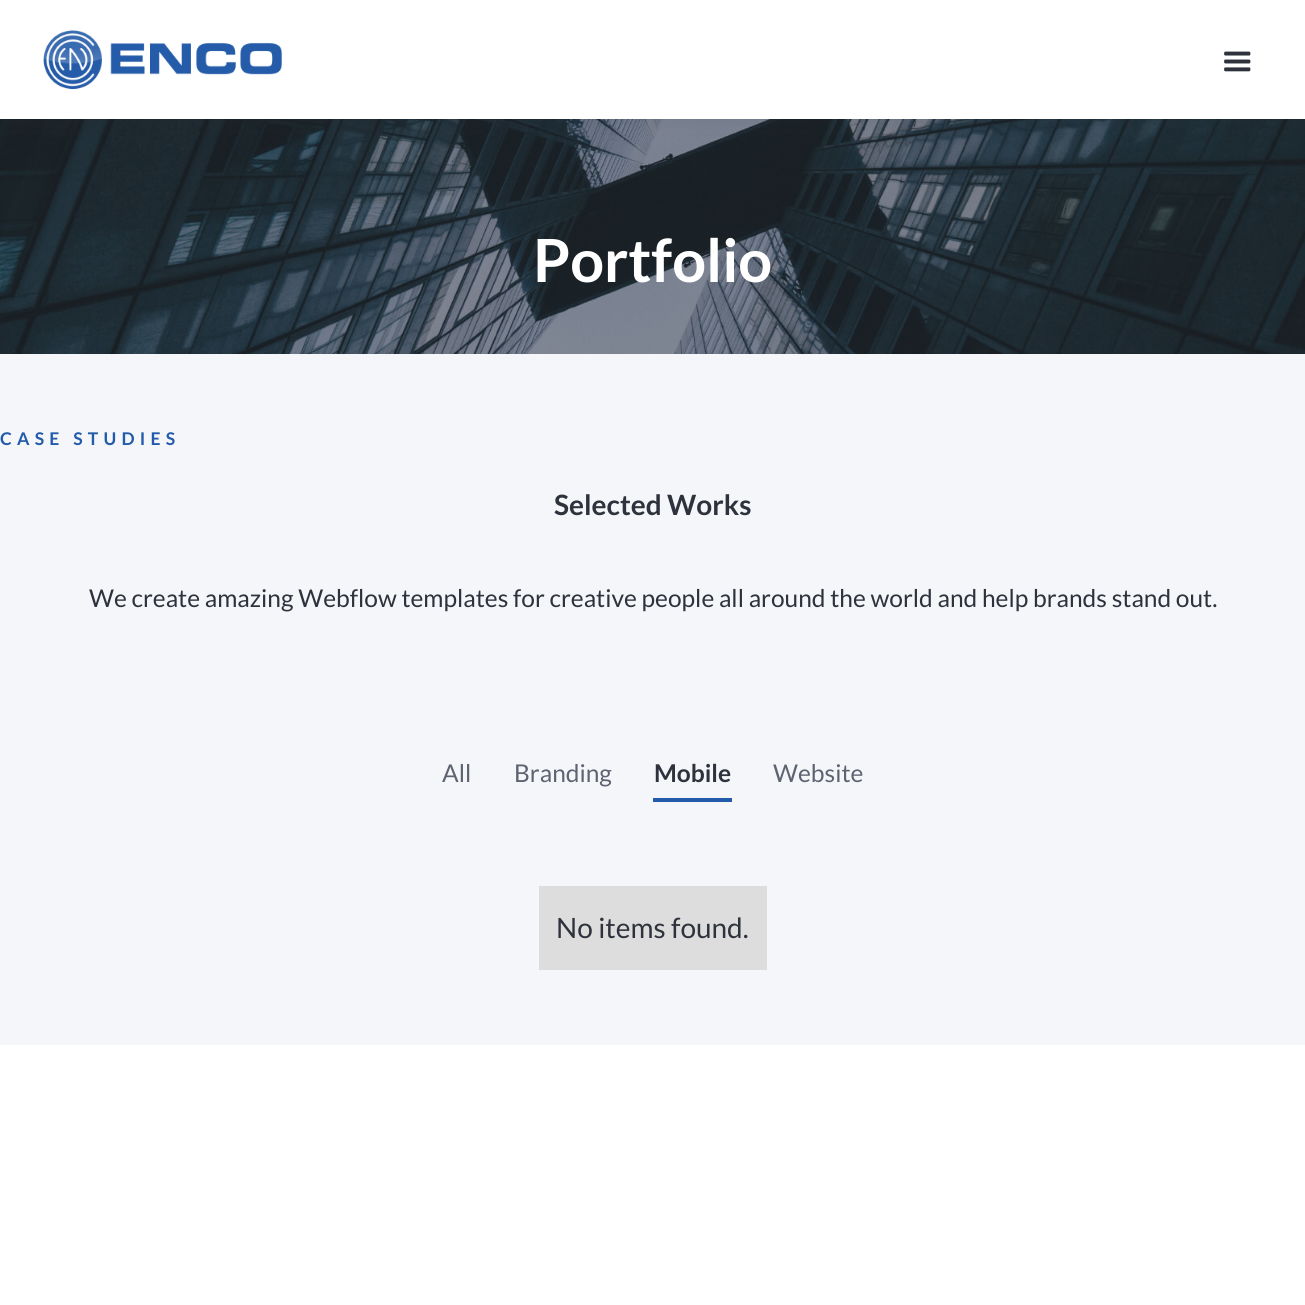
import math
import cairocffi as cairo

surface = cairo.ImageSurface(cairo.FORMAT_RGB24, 1305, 1305)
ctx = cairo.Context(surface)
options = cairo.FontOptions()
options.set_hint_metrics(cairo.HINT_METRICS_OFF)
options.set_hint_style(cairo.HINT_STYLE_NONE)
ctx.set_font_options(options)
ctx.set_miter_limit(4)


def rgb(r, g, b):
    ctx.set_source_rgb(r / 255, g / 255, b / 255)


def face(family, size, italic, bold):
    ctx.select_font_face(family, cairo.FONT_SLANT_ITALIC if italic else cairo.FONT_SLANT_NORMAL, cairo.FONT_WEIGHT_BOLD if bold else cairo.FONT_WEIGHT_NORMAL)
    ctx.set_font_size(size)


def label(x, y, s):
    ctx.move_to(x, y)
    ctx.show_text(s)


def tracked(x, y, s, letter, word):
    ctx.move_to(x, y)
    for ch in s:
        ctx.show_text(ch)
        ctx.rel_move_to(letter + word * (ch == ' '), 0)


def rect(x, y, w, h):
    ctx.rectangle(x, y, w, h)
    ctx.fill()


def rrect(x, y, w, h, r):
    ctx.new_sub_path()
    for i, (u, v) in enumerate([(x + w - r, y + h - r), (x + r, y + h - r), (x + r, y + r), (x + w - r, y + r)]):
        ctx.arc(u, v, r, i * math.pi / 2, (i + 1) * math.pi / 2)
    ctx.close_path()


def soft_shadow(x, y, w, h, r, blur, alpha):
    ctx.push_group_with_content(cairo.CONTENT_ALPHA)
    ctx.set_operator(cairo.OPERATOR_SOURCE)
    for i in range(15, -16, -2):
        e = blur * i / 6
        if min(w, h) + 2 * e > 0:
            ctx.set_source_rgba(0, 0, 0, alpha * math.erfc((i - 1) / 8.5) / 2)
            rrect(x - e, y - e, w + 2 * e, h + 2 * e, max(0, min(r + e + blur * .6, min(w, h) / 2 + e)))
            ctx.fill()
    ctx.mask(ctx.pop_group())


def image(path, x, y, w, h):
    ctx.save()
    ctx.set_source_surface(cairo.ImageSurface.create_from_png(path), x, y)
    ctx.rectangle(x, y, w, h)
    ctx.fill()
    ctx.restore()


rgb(255, 255, 255)
ctx.paint()
image('image2.png', 0, 119, 1305, 235)
rgb(46, 50, 60)
soft_shadow(0, 5, 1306, 119, 0, 8, 0.09)
rgb(255, 255, 255)
rect(0, 0, 1305, 119)
image('image0.png', 43, 30, 240, 60)
image('image1.png', 1224, 51, 27, 21)
face('Lato', 59.5, 0, 1)
label(533, 282, 'Portfolio')
rgb(245, 246, 249)
rect(0, 354, 1305, 691)
face('Lato', 17.5, 0, 1)
rgb(33, 91, 169)
tracked(0, 445, 'CASE STUDIES', 5.25, 0)
face('Lato', 28, 0, 1)
rgb(46, 50, 60)
label(554, 515, 'Selected Works')
face('Lato', 24.5, 0, 0)
label(89, 607, 'We create amazing Webflow templates for creative people all around the world and help brands stand out.')
rgb(93, 99, 113)
label(442, 782, 'All')
label(514, 782, 'Branding')
rgb(33, 91, 169)
rect(653, 798, 79, 4)
face('Lato', 24.5, 0, 1)
rgb(46, 50, 60)
label(654, 782, 'Mobile')
face('Lato', 24.5, 0, 0)
rgb(93, 99, 113)
label(773, 782, 'Website')
rgb(221, 221, 221)
rect(539, 886, 228, 84)
face('Lato', 28, 0, 0)
rgb(46, 50, 60)
label(556, 938, 'No items found.')
surface.write_to_png('render.png')
